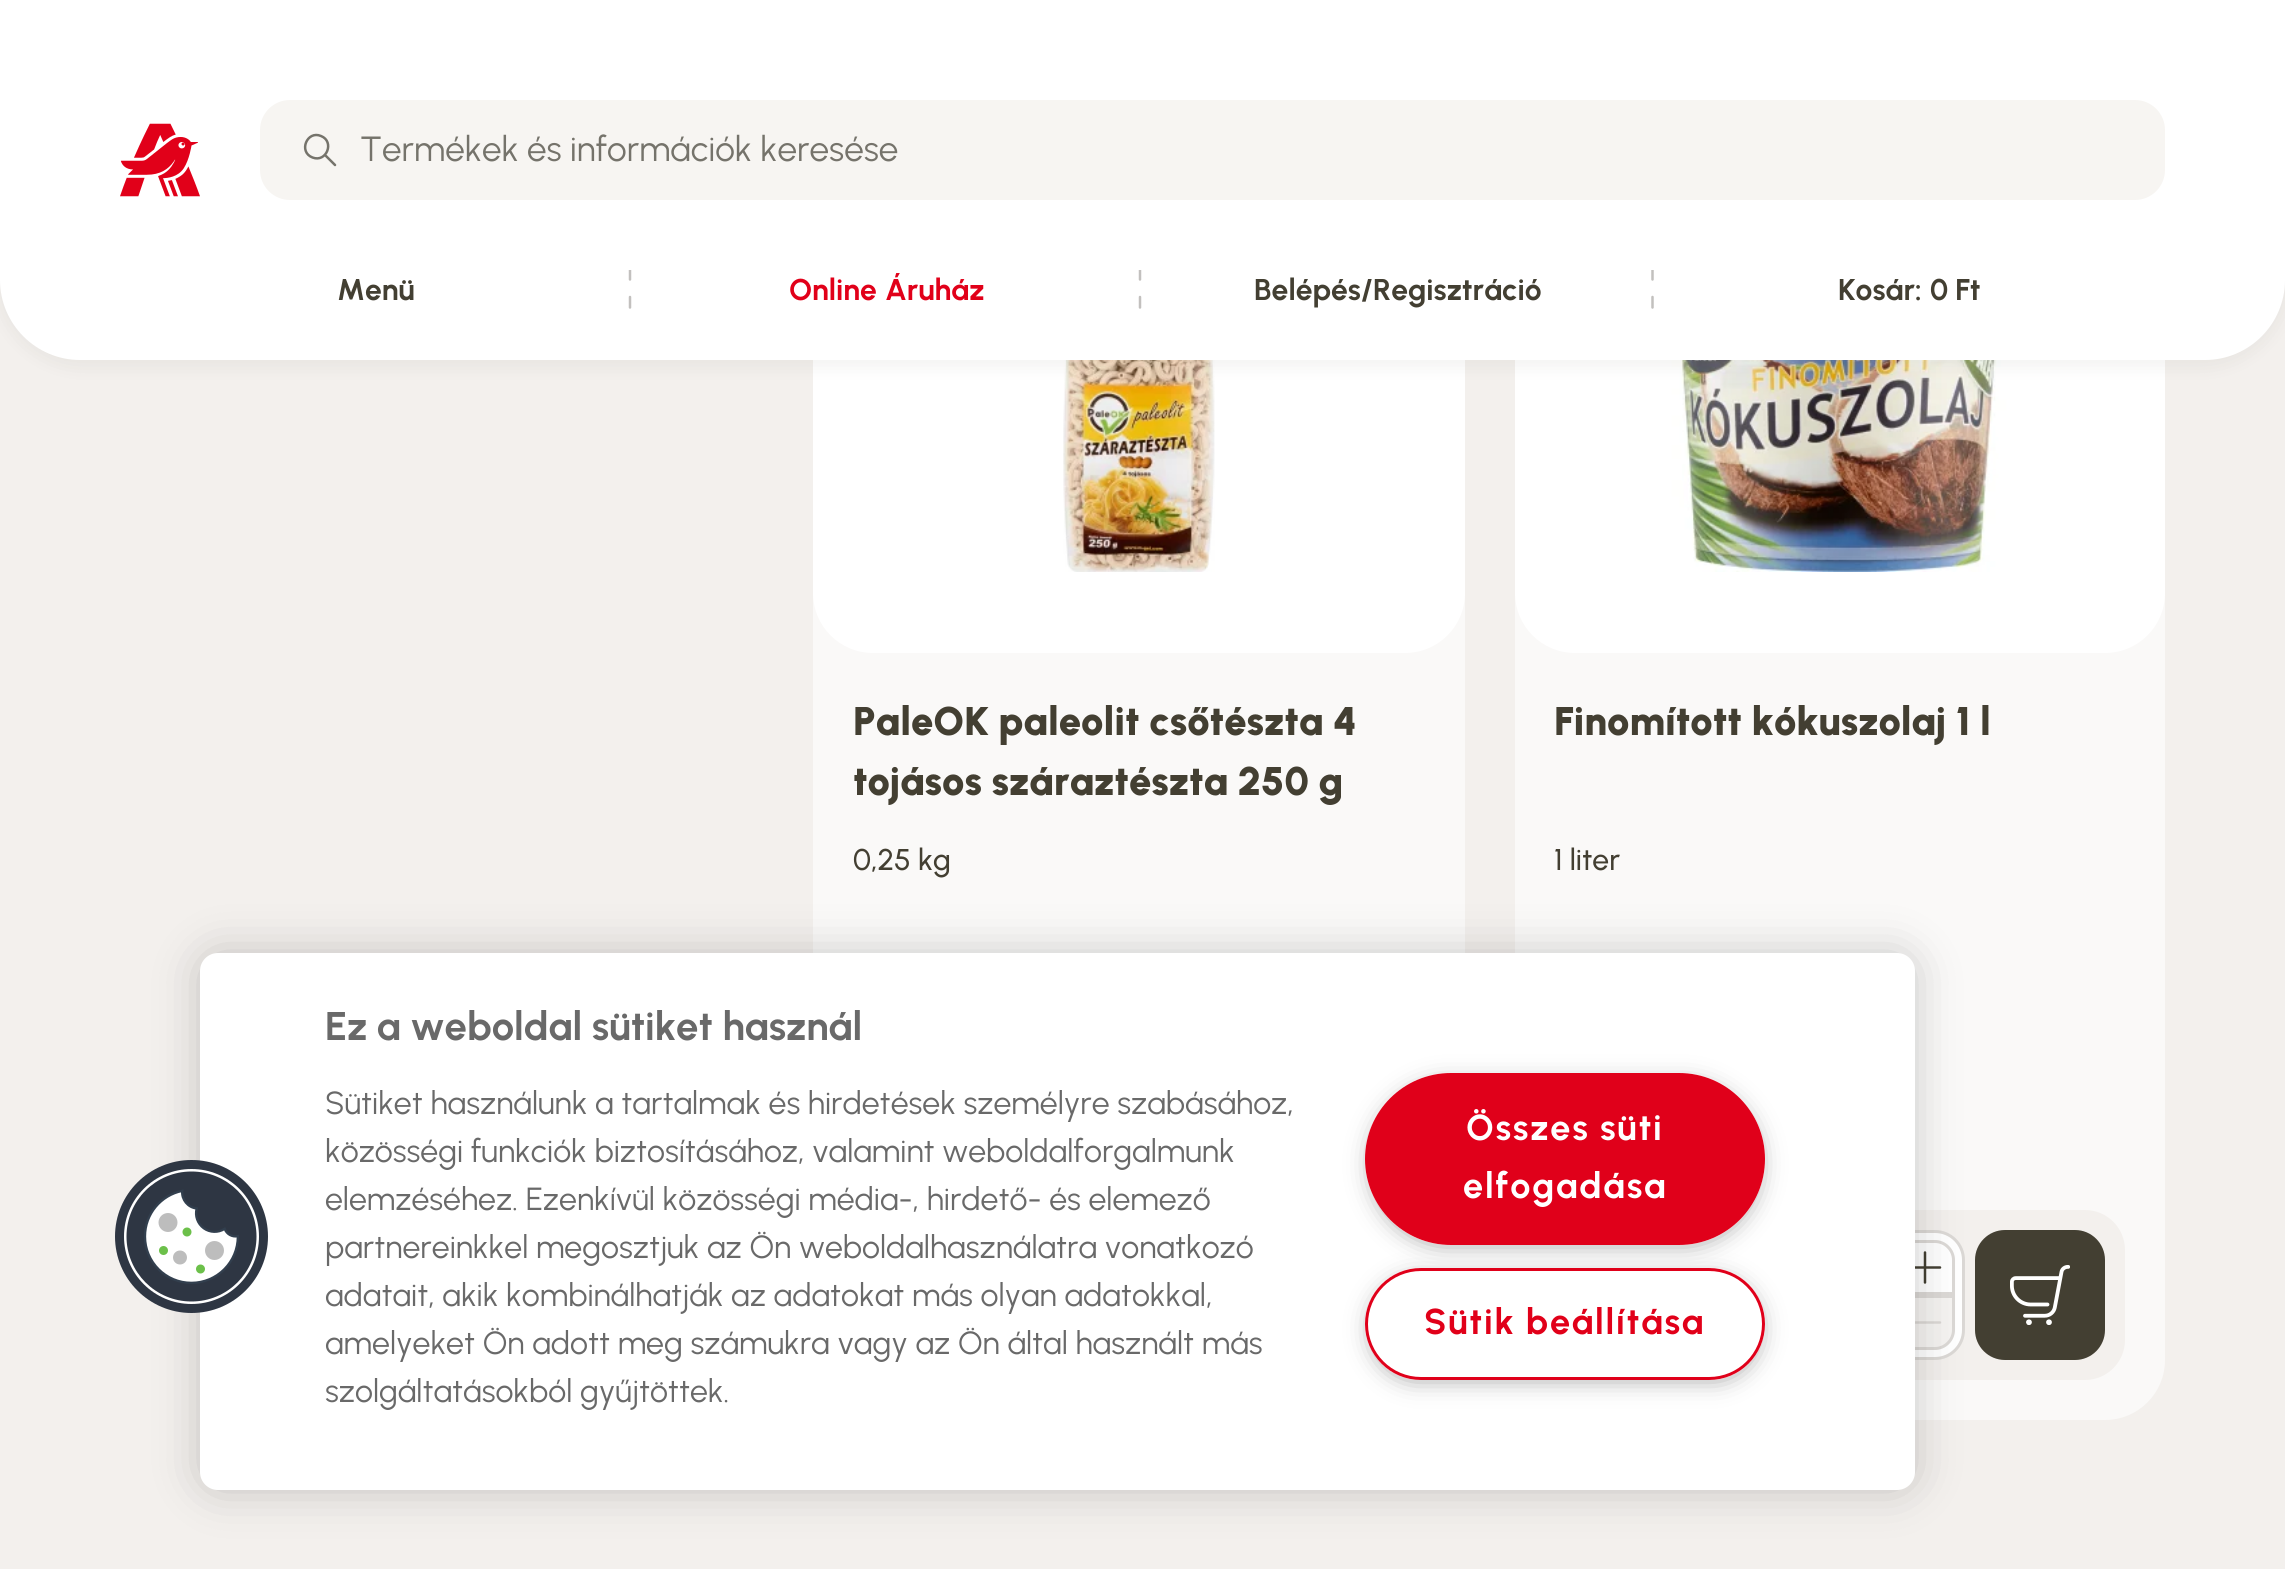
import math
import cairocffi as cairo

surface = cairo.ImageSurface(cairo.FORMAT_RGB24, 2285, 1569)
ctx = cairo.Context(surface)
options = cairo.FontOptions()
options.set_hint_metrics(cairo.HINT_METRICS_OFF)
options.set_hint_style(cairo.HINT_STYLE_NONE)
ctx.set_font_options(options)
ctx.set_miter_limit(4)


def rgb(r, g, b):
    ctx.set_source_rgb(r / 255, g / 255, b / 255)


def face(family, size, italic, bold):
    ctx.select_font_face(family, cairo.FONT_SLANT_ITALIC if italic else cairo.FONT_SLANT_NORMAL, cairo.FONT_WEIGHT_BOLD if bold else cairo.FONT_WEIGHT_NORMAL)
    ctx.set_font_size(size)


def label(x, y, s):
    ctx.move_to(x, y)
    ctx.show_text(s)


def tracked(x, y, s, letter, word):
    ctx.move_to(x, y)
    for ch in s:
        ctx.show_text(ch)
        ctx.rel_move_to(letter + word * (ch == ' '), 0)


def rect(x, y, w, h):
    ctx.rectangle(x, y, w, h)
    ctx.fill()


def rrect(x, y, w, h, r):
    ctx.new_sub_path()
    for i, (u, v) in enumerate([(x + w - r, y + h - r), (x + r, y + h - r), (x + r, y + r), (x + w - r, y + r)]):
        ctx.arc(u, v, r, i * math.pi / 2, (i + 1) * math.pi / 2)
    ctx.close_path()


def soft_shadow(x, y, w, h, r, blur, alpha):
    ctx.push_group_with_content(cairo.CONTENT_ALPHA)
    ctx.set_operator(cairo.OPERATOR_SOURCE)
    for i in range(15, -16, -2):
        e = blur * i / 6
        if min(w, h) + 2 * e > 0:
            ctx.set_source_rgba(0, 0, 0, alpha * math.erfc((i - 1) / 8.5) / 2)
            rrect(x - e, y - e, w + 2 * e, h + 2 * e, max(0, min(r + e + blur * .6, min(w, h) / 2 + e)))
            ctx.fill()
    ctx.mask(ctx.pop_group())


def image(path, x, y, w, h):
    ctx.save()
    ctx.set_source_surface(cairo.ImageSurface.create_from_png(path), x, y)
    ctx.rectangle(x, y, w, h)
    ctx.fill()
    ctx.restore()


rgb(243, 240, 237)
ctx.paint()
rgb(250, 249, 248)
rect(813, 593, 652, 360)
rgb(255, 255, 255)
rrect(813, 115, 652, 538, 60)
ctx.fill()
image('image1.png', 1063, 360, 152, 212)
rgb(250, 249, 248)
rrect(1515, 115, 650, 1305, 60)
ctx.fill()
rgb(255, 255, 255)
rrect(1515, 115, 650, 538, 60)
ctx.fill()
image('image2.png', 1652, 360, 372, 212)
rgb(67, 63, 50)
soft_shadow(0, 5, 2285, 360, 80, 10, 0.08)
rgb(255, 255, 255)
ctx.new_path()
ctx.move_to(0, 0)
ctx.line_to(2285, 0)
ctx.line_to(2285, 280)
ctx.curve_to(2285, 324, 2249, 360, 2205, 360)
ctx.line_to(80, 360)
ctx.curve_to(36, 360, 0, 324, 0, 280)
ctx.close_path()
ctx.fill()
image('image0.png', 120, 123, 80, 74)
rgb(247, 245, 242)
rrect(261.5, 101.5, 1902, 97, 28.5)
ctx.fill_preserve()
ctx.set_line_width(3)
ctx.stroke()
ctx.new_path()
ctx.move_to(326, 156)
ctx.line_to(335, 165)
ctx.move_to(321, 136)
ctx.curve_to(335, 141.5, 326.5, 163, 312.5, 157.5)
ctx.curve_to(298, 152, 307, 130, 321, 136)
ctx.close_path()
rgb(117, 115, 107)
ctx.set_line_width(2.5)
ctx.set_line_cap(cairo.LINE_CAP_ROUND)
ctx.set_line_join(cairo.LINE_JOIN_ROUND)
ctx.stroke()
face('Urbanist', 35, 0, 0)
label(360, 161, 'Termékek és információk keresése')
face('Urbanist', 30, 0, 1)
rgb(67, 63, 50)
label(337, 300, 'Menü')
ctx.save()
ctx.rectangle(628, 270, 5, 40)
ctx.clip()
ctx.new_path()
ctx.move_to(630, 269)
ctx.line_to(630, 279.5)
ctx.move_to(630, 297)
ctx.line_to(630, 307.5)
rgb(194, 192, 190)
ctx.set_line_join(cairo.LINE_JOIN_MITER)
ctx.stroke()
ctx.restore()
rgb(225, 0, 25)
label(789, 300, 'Online')
label(885, 300, 'Áruház')
ctx.save()
ctx.rectangle(1138, 270, 5, 40)
ctx.clip()
ctx.new_path()
ctx.move_to(1140, 269)
ctx.line_to(1140, 279.5)
ctx.move_to(1140, 297)
ctx.line_to(1140, 307.5)
rgb(194, 192, 190)
ctx.set_line_join(cairo.LINE_JOIN_MITER)
ctx.stroke()
ctx.restore()
rgb(67, 63, 50)
label(1254, 300, 'Belépés/Regisztráció')
ctx.save()
ctx.rectangle(1650, 270, 5, 40)
ctx.clip()
ctx.new_path()
ctx.move_to(1652.5, 269)
ctx.line_to(1652.5, 279.5)
ctx.move_to(1652.5, 297)
ctx.line_to(1652.5, 307.5)
rgb(194, 192, 190)
ctx.set_line_join(cairo.LINE_JOIN_MITER)
ctx.stroke()
ctx.restore()
label(1838, 300, 'Kosár:')
label(1930, 300, '0 Ft')
face('Urbanist Black', 40, 0, 0)
label(853, 735, 'PaleOK paleolit csőtészta 4')
label(853, 795, 'tojásos száraztészta 250 g')
face('Urbanist Medium', 30, 0, 0)
label(853, 870, '0,25 kg')
face('Urbanist Black', 40, 0, 0)
label(1554, 735, 'Finomított kókuszolaj 1 l')
face('Urbanist Medium', 30, 0, 0)
label(1554, 870, '1 liter')
rgb(243, 240, 237)
rrect(1555, 1210, 570, 170, 40)
ctx.fill()
rgb(255, 255, 255)
rrect(1576.5, 1231.5, 387, 127, 28.5)
ctx.fill_preserve()
rgb(219, 216, 213)
ctx.set_line_width(3)
ctx.set_line_cap(cairo.LINE_CAP_BUTT)
ctx.set_line_join(cairo.LINE_JOIN_MITER)
ctx.stroke()
ctx.new_path()
ctx.move_to(1915, 1241.5)
ctx.line_to(1935, 1241.5)
ctx.curve_to(1945, 1241.5, 1953.5, 1250, 1953.5, 1260)
ctx.line_to(1953.5, 1293.5)
ctx.line_to(1896.5, 1293.5)
ctx.line_to(1896.5, 1260)
ctx.curve_to(1896.5, 1250, 1905, 1241.5, 1915, 1241.5)
ctx.close_path()
ctx.stroke()
ctx.new_path()
ctx.move_to(1910, 1267.5)
ctx.line_to(1940, 1267.5)
ctx.move_to(1925, 1252.5)
ctx.line_to(1925, 1282.5)
rgb(67, 63, 50)
ctx.set_line_width(2.5)
ctx.set_line_cap(cairo.LINE_CAP_ROUND)
ctx.set_line_join(cairo.LINE_JOIN_ROUND)
ctx.stroke()
rgb(245, 243, 241)
ctx.new_path()
ctx.move_to(1896.5, 1296.5)
ctx.line_to(1953.5, 1296.5)
ctx.line_to(1953.5, 1330)
ctx.curve_to(1953.5, 1340, 1945, 1348.5, 1935, 1348.5)
ctx.line_to(1915, 1348.5)
ctx.curve_to(1905, 1348.5, 1896.5, 1340, 1896.5, 1330)
ctx.close_path()
ctx.fill_preserve()
rgb(219, 216, 213)
ctx.set_line_width(3)
ctx.set_line_cap(cairo.LINE_CAP_BUTT)
ctx.set_line_join(cairo.LINE_JOIN_MITER)
ctx.stroke()
ctx.new_path()
ctx.move_to(1910, 1322.5)
ctx.line_to(1940, 1322.5)
ctx.set_line_width(2.5)
ctx.set_line_cap(cairo.LINE_CAP_ROUND)
ctx.set_line_join(cairo.LINE_JOIN_ROUND)
ctx.stroke()
rgb(67, 63, 50)
rrect(1975, 1230, 130, 130, 30)
ctx.fill()
image('image3.png', 2010, 1265, 60, 60)
rgb(0, 0, 0)
soft_shadow(200, 953, 1715, 537, 18, 22.5, 0.2)
rgb(255, 255, 255)
rrect(200, 953, 1715, 537, 18)
ctx.fill()
image('image4.png', 115, 1160, 153, 153)
face('Urbanist', 40, 0, 1)
rgb(105, 105, 105)
label(325, 1040, 'Ez a weboldal sütiket használ')
face('Urbanist', 32, 0, 0)
label(325, 1114, 'Sütiket használunk a tartalmak és hirdetések személyre szabásához,')
label(325, 1162, 'közösségi funkciók biztosításához, valamint weboldalforgalmunk')
label(325, 1210, 'elemzéséhez. Ezenkívül közösségi média-, hirdető- és elemező')
label(325, 1258, 'partnereinkkel megosztjuk az Ön weboldalhasználatra vonatkozó')
label(325, 1306, 'adatait, akik kombinálhatják az adatokat más olyan adatokkal,')
label(325, 1354, 'amelyeket Ön adott meg számukra vagy az Ön által használt más')
label(325, 1402, 'szolgáltatásokból gyűjtöttek.')
ctx.save()
ctx.set_fill_rule(cairo.FILL_RULE_EVEN_ODD)
ctx.new_path()
ctx.move_to(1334, 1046)
ctx.line_to(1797, 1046)
ctx.line_to(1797, 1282)
ctx.line_to(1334, 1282)
ctx.close_path()
ctx.move_to(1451, 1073)
ctx.line_to(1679, 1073)
ctx.curve_to(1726.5, 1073, 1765, 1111.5, 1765, 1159)
ctx.curve_to(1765, 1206.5, 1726.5, 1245, 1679, 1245)
ctx.line_to(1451, 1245)
ctx.curve_to(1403.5, 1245, 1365, 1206.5, 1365, 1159)
ctx.curve_to(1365, 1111.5, 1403.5, 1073, 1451, 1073)
ctx.close_path()
ctx.clip()
rgb(153, 153, 153)
soft_shadow(1373, 1085, 385, 158, 79, 12.5, 1)
ctx.restore()
rgb(224, 0, 26)
rrect(1366.5, 1074.5, 397, 169, 84.5)
ctx.fill_preserve()
ctx.set_line_width(3)
ctx.set_line_cap(cairo.LINE_CAP_BUTT)
ctx.set_line_join(cairo.LINE_JOIN_MITER)
ctx.stroke()
face('Urbanist', 36, 0, 1)
rgb(255, 255, 255)
tracked(1466, 1140, 'Összes süti', 1.75, 0)
tracked(1463, 1198, 'elfogadása', 1.75, 0)
ctx.save()
ctx.set_fill_rule(cairo.FILL_RULE_EVEN_ODD)
ctx.new_path()
ctx.move_to(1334, 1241)
ctx.line_to(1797, 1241)
ctx.line_to(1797, 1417)
ctx.line_to(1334, 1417)
ctx.close_path()
ctx.move_to(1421, 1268)
ctx.line_to(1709, 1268)
ctx.curve_to(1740, 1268, 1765, 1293, 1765, 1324)
ctx.curve_to(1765, 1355, 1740, 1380, 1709, 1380)
ctx.line_to(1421, 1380)
ctx.curve_to(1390, 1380, 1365, 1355, 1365, 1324)
ctx.curve_to(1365, 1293, 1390, 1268, 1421, 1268)
ctx.close_path()
ctx.clip()
rgb(153, 153, 153)
soft_shadow(1373, 1280, 385, 98, 49, 12.5, 1)
ctx.restore()
rrect(1366.5, 1269.5, 397, 109, 54.5)
ctx.fill_preserve()
rgb(224, 0, 26)
ctx.stroke()
rgb(225, 0, 25)
tracked(1424, 1334, 'Sütik beállítása', 1.75, 0)
surface.write_to_png('render.png')
